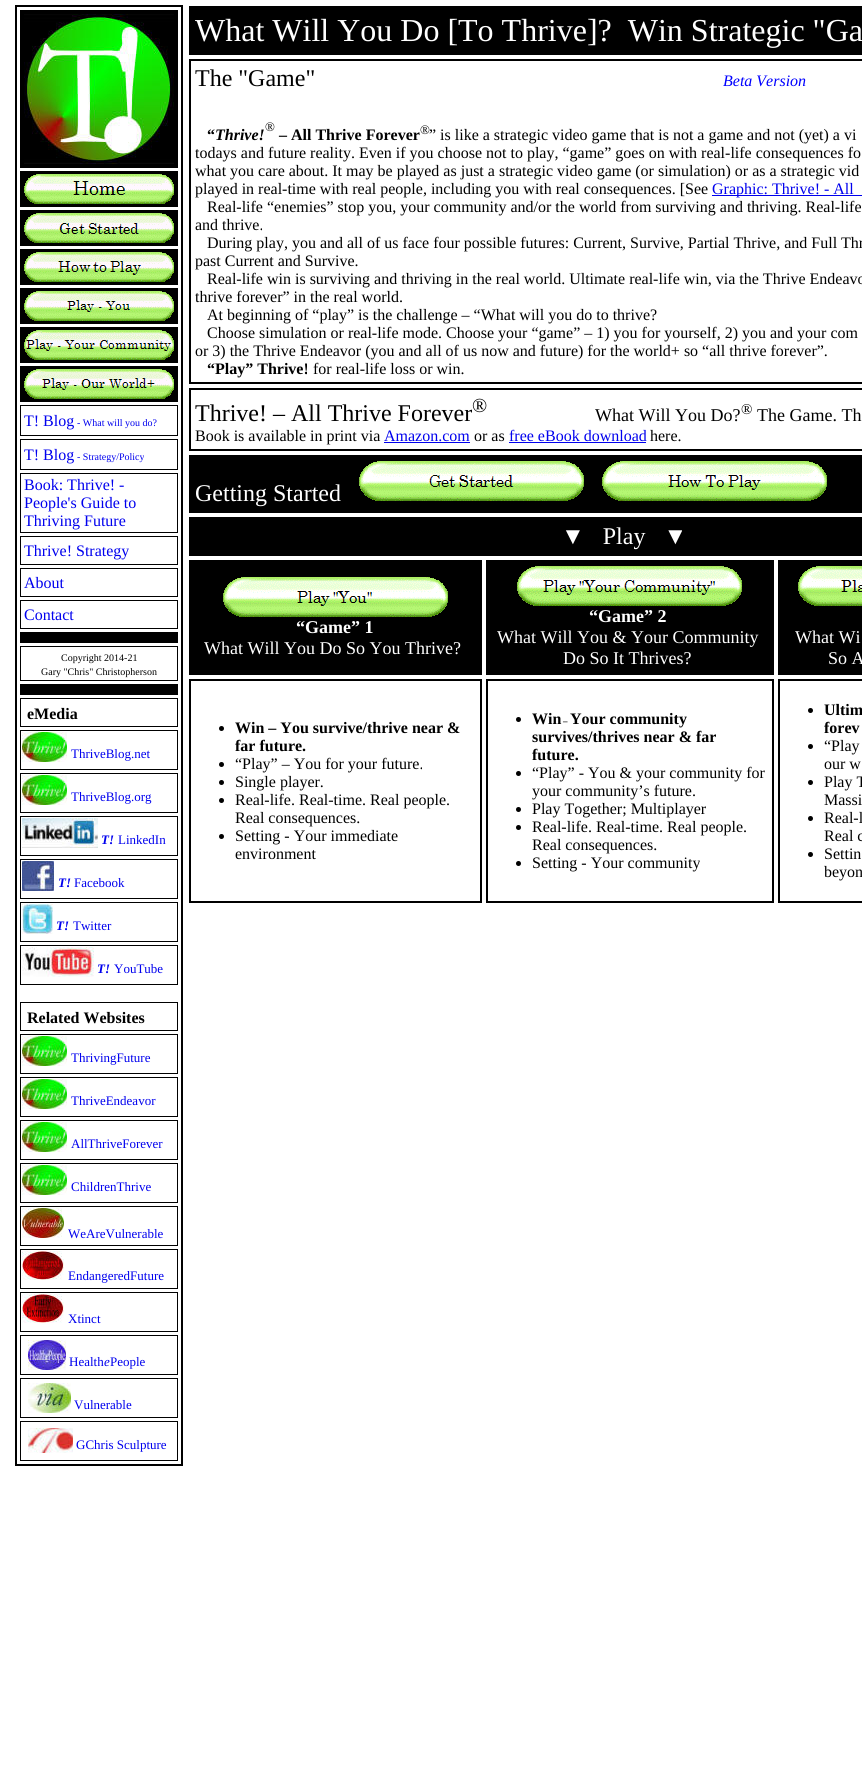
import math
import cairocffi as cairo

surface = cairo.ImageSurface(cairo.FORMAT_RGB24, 862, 1772)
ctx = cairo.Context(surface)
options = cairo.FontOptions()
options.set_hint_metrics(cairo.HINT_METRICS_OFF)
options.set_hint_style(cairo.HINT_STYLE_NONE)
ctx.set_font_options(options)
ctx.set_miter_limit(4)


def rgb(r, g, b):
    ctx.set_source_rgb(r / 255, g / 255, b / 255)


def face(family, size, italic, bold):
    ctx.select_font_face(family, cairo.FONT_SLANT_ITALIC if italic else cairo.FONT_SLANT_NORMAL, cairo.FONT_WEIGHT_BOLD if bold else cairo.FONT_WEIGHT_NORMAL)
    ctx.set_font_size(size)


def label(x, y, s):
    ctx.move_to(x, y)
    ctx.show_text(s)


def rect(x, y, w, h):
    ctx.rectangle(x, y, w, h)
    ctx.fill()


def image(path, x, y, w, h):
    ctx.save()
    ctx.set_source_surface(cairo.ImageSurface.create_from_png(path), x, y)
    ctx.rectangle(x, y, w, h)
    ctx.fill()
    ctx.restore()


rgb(255, 255, 255)
ctx.paint()
ctx.rectangle(16, 6, 166, 1459)
rgb(0, 0, 0)
ctx.stroke()
rect(20, 10, 158, 158)
image('image0.png', 24, 14, 150, 150)
rect(20, 171, 158, 36)
image('image1.png', 24, 174, 150, 30)
rect(20, 210, 158, 36)
image('image2.png', 24, 213, 150, 30)
rect(20, 249, 158, 36)
image('image3.png', 24, 252, 150, 30)
rect(20, 288, 158, 36)
image('image4.png', 24, 291, 150, 30)
rect(20, 327, 158, 36)
image('image5.png', 24, 330, 150, 30)
rect(20, 366, 158, 36)
image('image6.png', 24, 369, 150, 30)
ctx.rectangle(20.5, 405.5, 157, 30)
ctx.set_line_width(1)
ctx.stroke()
face('Liberation Serif', 16, 0, 0)
rgb(0, 0, 238)
label(24, 426, 'T! Blog')
face('Liberation Serif', 10, 0, 0)
label(77, 426, '- What will you do?')
ctx.rectangle(20.5, 439.5, 157, 30)
rgb(0, 0, 0)
ctx.stroke()
face('Liberation Serif', 16, 0, 0)
rgb(0, 0, 238)
label(24, 460, 'T! Blog')
face('Liberation Serif', 10, 0, 0)
label(77, 460, '- Strategy/Policy')
ctx.rectangle(20.5, 473.5, 157, 59)
rgb(0, 0, 0)
ctx.stroke()
face('Liberation Serif', 16, 0, 0)
rgb(0, 0, 238)
label(24, 490, 'Book: Thrive! -')
label(24, 508, 'People\'s Guide to')
label(24, 526, 'Thriving Future')
ctx.rectangle(20.5, 536.5, 157, 28)
rgb(0, 0, 0)
ctx.stroke()
rgb(0, 0, 238)
label(24, 556, 'Thrive! Strategy')
ctx.rectangle(20.5, 568.5, 157, 28)
rgb(0, 0, 0)
ctx.stroke()
rgb(0, 0, 238)
label(24, 588, 'About')
ctx.rectangle(20.5, 600.5, 157, 28)
rgb(0, 0, 0)
ctx.stroke()
rgb(0, 0, 238)
label(24, 620, 'Contact')
rgb(0, 0, 0)
rect(20, 632, 158, 11)
ctx.rectangle(20.5, 646.5, 157, 34)
ctx.stroke()
face('Liberation Serif', 10, 0, 0)
label(61, 661, 'Copyright 2014-21')
label(41, 675, 'Gary "Chris" Christopherson')
rect(20, 684, 158, 11)
ctx.rectangle(20.5, 698.5, 157, 28)
ctx.stroke()
face('Liberation Serif', 16, 0, 1)
label(27, 719, 'eMedia')
ctx.rectangle(20.5, 730.5, 157, 39)
ctx.stroke()
image('image7.png', 22, 732, 45, 30)
face('Liberation Serif', 13, 0, 0)
rgb(0, 0, 238)
label(71, 758, 'ThriveBlog.net')
ctx.rectangle(20.5, 773.5, 157, 39)
rgb(0, 0, 0)
ctx.stroke()
image('image7.png', 22, 775, 45, 30)
rgb(0, 0, 238)
label(71, 801, 'ThriveBlog.org')
ctx.rectangle(20.5, 816.5, 157, 39)
rgb(0, 0, 0)
ctx.stroke()
image('image8.png', 22, 818, 76, 30)
face('Liberation Serif', 13, 1, 1)
rgb(0, 0, 238)
label(101, 844, 'T!')
face('Liberation Serif', 13, 0, 0)
label(118, 844, 'LinkedIn')
ctx.rectangle(20.5, 859.5, 157, 39)
rgb(0, 0, 0)
ctx.stroke()
image('image9.png', 22, 861, 32, 30)
face('Liberation Serif', 13, 1, 1)
rgb(0, 0, 238)
label(58, 887, 'T!')
face('Liberation Serif', 13, 0, 0)
label(74, 887, 'Facebook')
ctx.rectangle(20.5, 902.5, 157, 39)
rgb(0, 0, 0)
ctx.stroke()
image('image10.png', 22, 904, 31, 30)
face('Liberation Serif', 13, 1, 1)
rgb(0, 0, 238)
label(56, 930, 'T!')
face('Liberation Serif', 13, 0, 0)
label(73, 930, 'Twitter')
ctx.rectangle(20.5, 945.5, 157, 39)
rgb(0, 0, 0)
ctx.stroke()
image('image11.png', 22, 947, 72, 30)
face('Liberation Serif', 13, 1, 1)
rgb(0, 0, 238)
label(97, 973, 'T!')
face('Liberation Serif', 13, 0, 0)
label(114, 973, 'YouTube')
ctx.rectangle(20.5, 1002.5, 157, 28)
rgb(0, 0, 0)
ctx.stroke()
face('Liberation Serif', 16, 0, 1)
label(27, 1023, 'Related Websites')
ctx.rectangle(20.5, 1034.5, 157, 39)
ctx.stroke()
image('image7.png', 22, 1036, 45, 30)
face('Liberation Serif', 13, 0, 0)
rgb(0, 0, 238)
label(71, 1062, 'ThrivingFuture')
ctx.rectangle(20.5, 1077.5, 157, 39)
rgb(0, 0, 0)
ctx.stroke()
image('image7.png', 22, 1079, 45, 30)
rgb(0, 0, 238)
label(71, 1105, 'ThriveEndeavor')
ctx.rectangle(20.5, 1120.5, 157, 39)
rgb(0, 0, 0)
ctx.stroke()
image('image7.png', 22, 1122, 45, 30)
rgb(0, 0, 238)
label(71, 1148, 'AllThriveForever')
ctx.rectangle(20.5, 1163.5, 157, 39)
rgb(0, 0, 0)
ctx.stroke()
image('image7.png', 22, 1165, 45, 30)
rgb(0, 0, 238)
label(71, 1191, 'ChildrenThrive')
ctx.rectangle(20.5, 1206.5, 157, 39)
rgb(0, 0, 0)
ctx.stroke()
image('image12.png', 22, 1208, 42, 30)
rgb(0, 0, 238)
label(68, 1238, 'WeAreVulnerable')
ctx.rectangle(20.5, 1249.5, 157, 39)
rgb(0, 0, 0)
ctx.stroke()
image('image13.png', 22, 1251, 42, 29)
rgb(0, 0, 238)
label(68, 1280, 'EndangeredFuture')
ctx.rectangle(20.5, 1292.5, 157, 39)
rgb(0, 0, 0)
ctx.stroke()
image('image14.png', 22, 1294, 42, 29)
rgb(0, 0, 238)
label(68, 1323, 'Xtinct')
ctx.rectangle(20.5, 1335.5, 157, 39)
rgb(0, 0, 0)
ctx.stroke()
image('image15.png', 28, 1340, 38, 30)
rgb(0, 0, 238)
label(69, 1366, 'Health')
face('Liberation Serif', 13, 1, 0)
label(104, 1366, 'e')
face('Liberation Serif', 13, 0, 0)
label(110, 1366, 'People')
ctx.rectangle(20.5, 1378.5, 157, 39)
rgb(0, 0, 0)
ctx.stroke()
image('image16.png', 28, 1383, 43, 30)
rgb(0, 0, 238)
label(74, 1409, 'Vulnerable')
ctx.rectangle(20.5, 1421.5, 157, 39)
rgb(0, 0, 0)
ctx.stroke()
image('image17.png', 28, 1428, 45, 25)
rgb(0, 0, 238)
label(76, 1449, 'GChris Sculpture')
rgb(0, 0, 0)
rect(189, 6, 673, 49)
face('Liberation Serif', 32, 0, 0)
rgb(255, 255, 255)
label(195, 41, 'What Will You Do [To Thrive]?  Win Strategic "Ga')
ctx.rectangle(190, 60, 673, 323)
rgb(0, 0, 0)
ctx.set_line_width(2)
ctx.stroke()
face('Liberation Serif', 24, 0, 0)
label(195, 86, 'The "Game"')
face('Liberation Serif', 16, 1, 0)
rgb(0, 0, 255)
label(723, 86, 'Beta Version')
face('Liberation Serif', 16, 0, 1)
rgb(0, 0, 0)
label(207, 140, '“')
face('Liberation Serif', 16, 1, 1)
label(215, 140, 'Thrive!')
face('Liberation Serif', 13, 0, 0)
label(265, 131, '®')
face('Liberation Serif', 16, 0, 1)
label(279, 140, '– All Thrive Forever')
face('Liberation Serif', 13, 0, 0)
label(420, 134, '®')
face('Liberation Serif', 16, 0, 0)
label(429, 140, '” is like a strategic video game that is not a game and not (yet) a vi')
label(195, 158, 'todays and future reality. Even if you choose not to play, “game” goes on with real-life consequences fo')
label(195, 176, 'what you care about. It may be played as just a strategic video game (or simulation) or as a strategic vid')
label(195, 194, 'played in real-time with real people, including you with real consequences. [See')
rgb(0, 0, 238)
rect(712, 195, 150, 1)
label(712, 194, 'Graphic: Thrive! - All')
rgb(0, 0, 0)
label(207, 212, 'Real-life “enemies” stop you, your community and/or the world from surviving and thriving. Real-life')
label(195, 230, 'and thrive.')
label(207, 248, 'During play, you and all of us face four possible futures: Current, Survive, Partial Thrive, and Full Thr')
label(195, 266, 'past Current and Survive.')
label(207, 284, 'Real-life win is surviving and thriving in the real world. Ultimate real-life win, via the Thrive Endeavo')
label(195, 302, 'thrive forever” in the real world.')
label(207, 320, 'At beginning of “play” is the challenge – “What will you do to thrive?')
label(207, 338, 'Choose simulation or real-life mode. Choose your “game” – 1) you for yourself, 2) you and your com')
label(195, 356, 'or 3) the Thrive Endeavor (you and all of us now and future) for the world+ so “all thrive forever”.')
face('Liberation Serif', 16, 0, 1)
label(207, 374, '“Play” Thrive!')
face('Liberation Serif', 16, 0, 0)
label(313, 374, 'for real-life loss or win.')
ctx.rectangle(190, 389, 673, 61)
ctx.stroke()
face('Liberation Serif', 24, 0, 0)
label(195, 421, 'Thrive! – All Thrive Forever')
face('Liberation Serif', 20, 0, 0)
label(472, 412, '®')
face('Liberation Serif', 18, 0, 0)
label(595, 421, 'What Will You Do?')
face('Liberation Serif', 15, 0, 0)
label(741, 414, '®')
face('Liberation Serif', 18, 0, 0)
label(757, 421, 'The Game. Th')
face('Liberation Serif', 16, 0, 0)
label(195, 441, 'Book is available in print via')
rgb(0, 0, 238)
label(384, 441, 'Amazon.com')
rect(384, 442, 86, 1)
rgb(0, 0, 0)
label(474, 441, 'or as')
rgb(0, 0, 238)
rect(509, 442, 137, 1)
label(509, 441, 'free eBook download')
rgb(0, 0, 0)
label(650, 441, 'here.')
rect(189, 455, 673, 58)
face('Liberation Serif', 24, 0, 0)
rgb(255, 255, 255)
label(195, 501, 'Getting Started')
image('image18.png', 359, 461, 225, 40)
image('image19.png', 602, 461, 225, 40)
rgb(0, 0, 0)
rect(189, 517, 673, 39)
rgb(255, 255, 255)
label(561, 544, '▼   Play   ▼')
rgb(0, 0, 0)
rect(189, 560, 293, 115)
image('image20.png', 223, 577, 225, 40)
face('Liberation Serif', 18, 0, 1)
rgb(255, 255, 255)
label(296, 633, '“Game” 1')
face('Liberation Serif', 18, 0, 0)
label(204, 654, 'What Will You Do So You Thrive?')
rgb(0, 0, 0)
rect(486, 560, 288, 115)
image('image21.png', 517, 566, 225, 40)
face('Liberation Serif', 18, 0, 1)
rgb(255, 255, 255)
label(589, 622, '“Game” 2')
face('Liberation Serif', 18, 0, 0)
label(497, 643, 'What Will You & Your Community')
label(563, 664, 'Do So It Thrives?')
rgb(0, 0, 0)
rect(778, 560, 84, 115)
image('image22.png', 798, 566, 64, 40)
rgb(255, 255, 255)
label(795, 643, 'What Wi')
label(828, 664, 'So A')
ctx.rectangle(190, 680, 291, 222)
rgb(0, 0, 0)
ctx.stroke()
ctx.arc(221.5, 728.5, 2.5, 0, 2 * math.pi)
ctx.fill()
face('Liberation Serif', 16, 0, 1)
label(235, 733, 'Win – You survive/thrive near &')
label(235, 751, 'far future.')
ctx.new_path()
ctx.arc(221.5, 764.5, 2.5, 0, 2 * math.pi)
ctx.fill()
face('Liberation Serif', 16, 0, 0)
label(235, 769, '“Play” – You for your future.')
ctx.new_path()
ctx.arc(221.5, 782.5, 2.5, 0, 2 * math.pi)
ctx.fill()
label(235, 787, 'Single player.')
ctx.new_path()
ctx.arc(221.5, 800.5, 2.5, 0, 2 * math.pi)
ctx.fill()
label(235, 805, 'Real-life. Real-time. Real people.')
label(235, 823, 'Real consequences.')
ctx.new_path()
ctx.arc(221.5, 836.5, 2.5, 0, 2 * math.pi)
ctx.fill()
label(235, 841, 'Setting - Your immediate')
label(235, 859, 'environment')
ctx.rectangle(487, 680, 286, 222)
ctx.stroke()
ctx.arc(518.5, 719.5, 2.5, 0, 2 * math.pi)
ctx.fill()
face('Liberation Serif', 16, 0, 1)
label(532, 724, 'Win')
face('Liberation Serif', 9, 0, 1)
label(563, 724, '–')
face('Liberation Serif', 16, 0, 1)
label(570, 724, 'Your community')
label(532, 742, 'survives/thrives near & far')
label(532, 760, 'future.')
ctx.new_path()
ctx.arc(518.5, 773.5, 2.5, 0, 2 * math.pi)
ctx.fill()
face('Liberation Serif', 16, 0, 0)
label(532, 778, '“Play” - You & your community for')
label(532, 796, 'your community’s future.')
ctx.new_path()
ctx.arc(518.5, 809.5, 2.5, 0, 2 * math.pi)
ctx.fill()
label(532, 814, 'Play Together; Multiplayer')
ctx.new_path()
ctx.arc(518.5, 827.5, 2.5, 0, 2 * math.pi)
ctx.fill()
label(532, 832, 'Real-life. Real-time. Real people.')
label(532, 850, 'Real consequences.')
ctx.new_path()
ctx.arc(518.5, 863.5, 2.5, 0, 2 * math.pi)
ctx.fill()
label(532, 868, 'Setting - Your community')
ctx.rectangle(779, 680, 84, 222)
ctx.stroke()
ctx.arc(810.5, 710.5, 2.5, 0, 2 * math.pi)
ctx.fill()
face('Liberation Serif', 16, 0, 1)
label(824, 715, 'Ultim')
label(824, 733, 'forev')
ctx.new_path()
ctx.arc(810.5, 746.5, 2.5, 0, 2 * math.pi)
ctx.fill()
face('Liberation Serif', 16, 0, 0)
label(824, 751, '“Play')
label(824, 769, 'our w')
ctx.new_path()
ctx.arc(810.5, 782.5, 2.5, 0, 2 * math.pi)
ctx.fill()
label(824, 787, 'Play T')
label(824, 805, 'Massi')
ctx.new_path()
ctx.arc(810.5, 818.5, 2.5, 0, 2 * math.pi)
ctx.fill()
label(824, 823, 'Real-l')
label(824, 841, 'Real c')
ctx.new_path()
ctx.arc(810.5, 854.5, 2.5, 0, 2 * math.pi)
ctx.fill()
label(824, 859, 'Settin')
label(824, 877, 'beyon')
surface.write_to_png('render.png')
